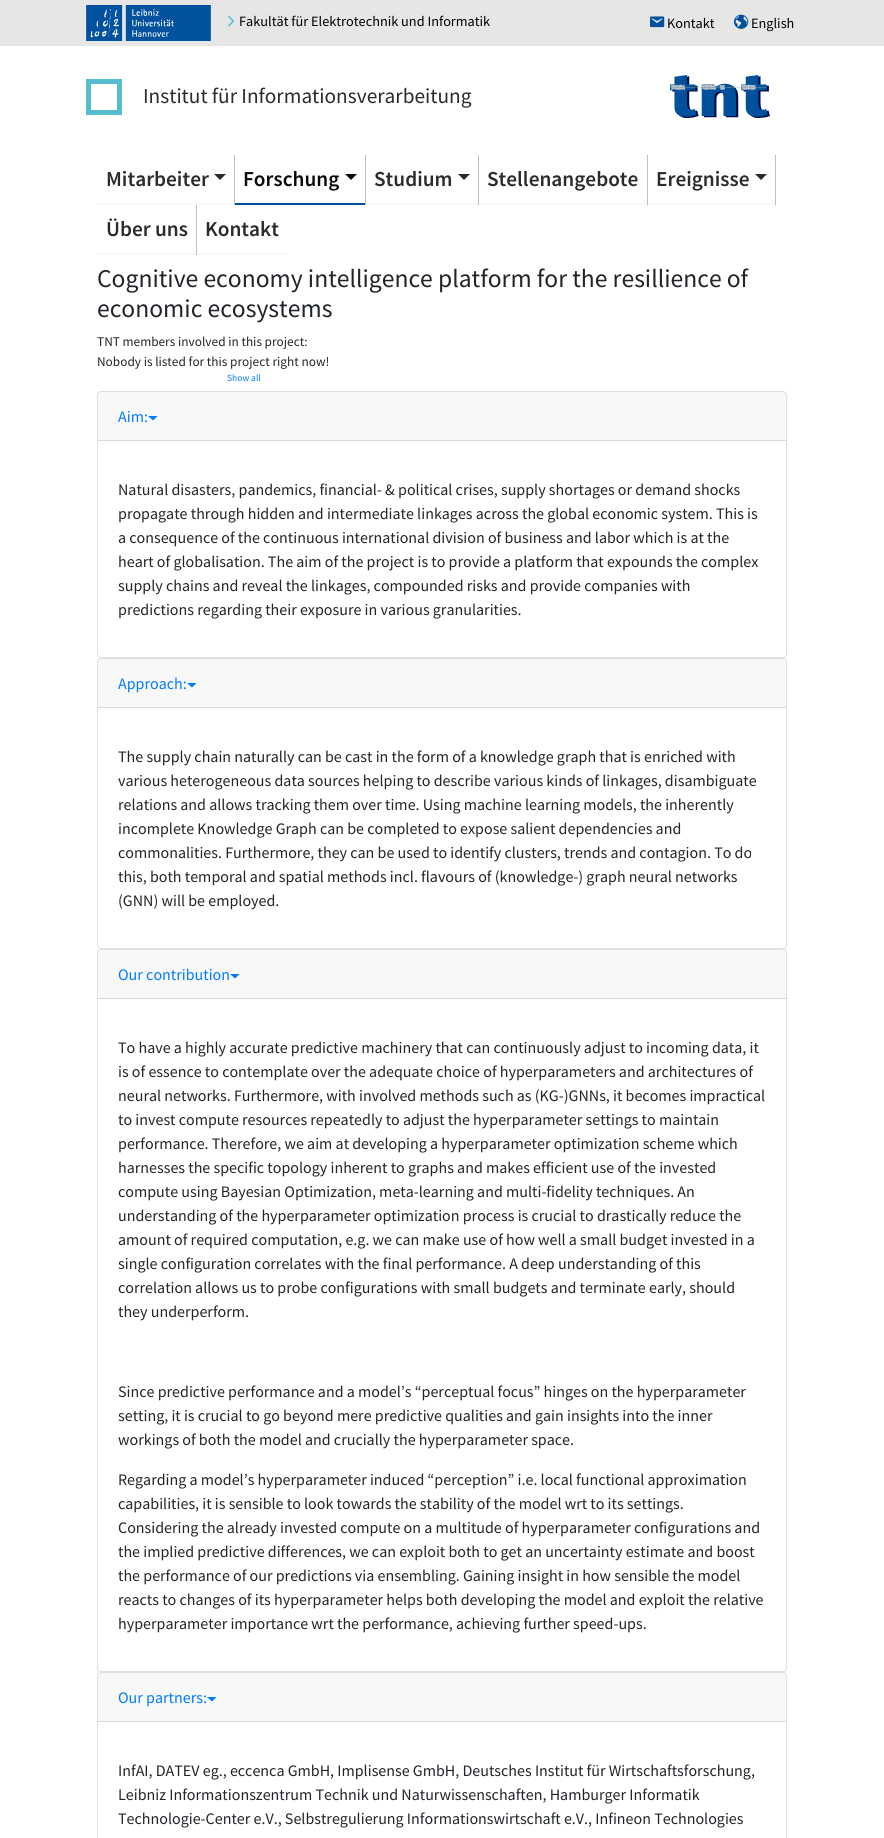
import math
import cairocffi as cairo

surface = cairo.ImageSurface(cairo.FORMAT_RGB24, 884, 1838)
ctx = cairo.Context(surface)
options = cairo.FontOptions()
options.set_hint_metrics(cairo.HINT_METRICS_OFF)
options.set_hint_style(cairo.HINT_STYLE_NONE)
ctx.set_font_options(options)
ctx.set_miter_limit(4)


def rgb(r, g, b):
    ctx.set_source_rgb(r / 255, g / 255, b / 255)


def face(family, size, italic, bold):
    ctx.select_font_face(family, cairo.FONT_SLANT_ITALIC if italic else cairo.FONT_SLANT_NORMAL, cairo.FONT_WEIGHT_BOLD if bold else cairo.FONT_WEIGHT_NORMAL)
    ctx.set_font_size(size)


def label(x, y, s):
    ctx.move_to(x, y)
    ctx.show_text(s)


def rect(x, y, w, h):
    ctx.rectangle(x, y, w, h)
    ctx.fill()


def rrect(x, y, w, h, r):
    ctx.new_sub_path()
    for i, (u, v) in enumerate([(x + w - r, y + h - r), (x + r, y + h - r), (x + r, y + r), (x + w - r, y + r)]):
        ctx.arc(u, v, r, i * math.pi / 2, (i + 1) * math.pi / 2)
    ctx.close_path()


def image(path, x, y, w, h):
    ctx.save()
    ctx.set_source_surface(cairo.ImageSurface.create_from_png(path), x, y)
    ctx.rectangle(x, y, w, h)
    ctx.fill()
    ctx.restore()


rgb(255, 255, 255)
ctx.paint()
rgb(230, 230, 230)
rect(0, 0, 884, 46)
image('image0.png', 86, 5, 125, 36)
image('image1.png', 227, 15, 8, 12)
face('Source Sans Pro', 14.25, 0, 0)
rgb(0, 0, 0)
label(239, 26, 'Fakultät für Elektrotechnik und Informatik')
image('image2.png', 650, 16, 15, 12)
label(667, 28, 'Kontakt')
image('image3.png', 734, 14, 15, 15)
label(751, 28, 'English')
ctx.rectangle(88.5, 81.5, 31, 31)
rgb(85, 189, 203)
ctx.set_line_width(5)
ctx.stroke()
face('Source Sans Pro', 21.3, 0, 0)
rgb(43, 43, 43)
label(143, 103, 'Institut für Informationsverarbeitung')
image('image4.png', 670, 75, 100, 43)
rgb(192, 192, 192)
rect(234, 155, 1, 50)
rgb(248, 249, 250)
rect(98, 203, 136, 2)
face('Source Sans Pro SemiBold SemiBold', 21.3, 0, 0)
rgb(43, 43, 43)
label(106, 186, 'Mitarbeiter')
ctx.new_path()
ctx.move_to(214, 174)
ctx.line_to(226, 174)
ctx.line_to(220, 180)
ctx.close_path()
ctx.fill()
rgb(192, 192, 192)
rect(365, 155, 1, 50)
rgb(0, 80, 155)
rect(235, 203, 130, 2)
rgb(10, 10, 10)
label(243, 186, 'Forschung')
ctx.new_path()
ctx.move_to(345, 174)
ctx.line_to(357, 174)
ctx.line_to(351, 180)
ctx.close_path()
ctx.fill()
rgb(192, 192, 192)
rect(478, 155, 1, 50)
rgb(248, 249, 250)
rect(366, 203, 112, 2)
rgb(43, 43, 43)
label(374, 186, 'Studium')
ctx.new_path()
ctx.move_to(458, 174)
ctx.line_to(470, 174)
ctx.line_to(464, 180)
ctx.close_path()
ctx.fill()
rgb(192, 192, 192)
rect(647, 155, 1, 50)
rgb(248, 249, 250)
rect(479, 203, 168, 2)
rgb(43, 43, 43)
label(487, 186, 'Stellenangebote')
rgb(192, 192, 192)
rect(775, 155, 1, 50)
rgb(248, 249, 250)
rect(648, 203, 127, 2)
rgb(43, 43, 43)
label(656, 186, 'Ereignisse')
ctx.new_path()
ctx.move_to(755, 174)
ctx.line_to(767, 174)
ctx.line_to(761, 180)
ctx.close_path()
ctx.fill()
rgb(192, 192, 192)
rect(196, 205, 1, 50)
rgb(248, 249, 250)
rect(98, 253, 98, 2)
rgb(43, 43, 43)
label(106, 236, 'Über uns')
rgb(248, 249, 250)
rect(197, 253, 90, 2)
rgb(43, 43, 43)
label(205, 236, 'Kontakt')
face('Source Sans Pro', 25.6, 0, 0)
rgb(33, 37, 41)
label(97, 287, 'Cognitive economy intelligence platform for the resillience of')
label(97, 317, 'economic ecosystems')
face('Source Sans Pro', 13.3, 0, 0)
label(97, 346, 'TNT members involved in this project:')
label(97, 366, 'Nobody is listed for this project right now!')
face('Source Sans Pro', 9.5, 0, 0)
rgb(0, 123, 255)
label(227, 381, 'Show all')
rrect(97.5, 391.5, 689, 266, 3.5)
rgb(223, 223, 223)
ctx.set_line_width(1)
ctx.stroke()
ctx.set_source_rgba(0, 0, 0, 0.03)
rect(98, 392, 688, 48)
rgb(216, 216, 216)
rect(98, 440, 688, 1)
face('Source Sans Pro', 16, 0, 0)
rgb(0, 123, 255)
label(118, 422, 'Aim:')
ctx.new_path()
ctx.move_to(148, 416)
ctx.line_to(157.5, 416)
ctx.line_to(153, 420.5)
ctx.close_path()
ctx.fill()
rgb(33, 37, 41)
label(118, 495, 'Natural disasters, pandemics, financial- & political crises, supply shortages or demand shocks')
label(118, 519, 'propagate through hidden and intermediate linkages across the global economic system. This is')
label(118, 543, 'a consequence of the continuous international division of business and labor which is at the')
label(118, 567, 'heart of globalisation. The aim of the project is to provide a platform that expounds the complex')
label(118, 591, 'supply chains and reveal the linkages, compounded risks and provide companies with')
label(118, 615, 'predictions regarding their exposure in various granularities.')
rrect(97.5, 658.5, 689, 290, 3.5)
rgb(223, 223, 223)
ctx.stroke()
ctx.set_source_rgba(0, 0, 0, 0.03)
rect(98, 659, 688, 48)
rgb(216, 216, 216)
rect(98, 707, 688, 1)
rgb(0, 123, 255)
label(118, 689, 'Approach:')
ctx.new_path()
ctx.move_to(187, 683)
ctx.line_to(196.5, 683)
ctx.line_to(192, 687.5)
ctx.close_path()
ctx.fill()
rgb(33, 37, 41)
label(118, 762, 'The supply chain naturally can be cast in the form of a knowledge graph that is enriched with')
label(118, 786, 'various heterogeneous data sources helping to describe various kinds of linkages, disambiguate')
label(118, 810, 'relations and allows tracking them over time. Using machine learning models, the inherently')
label(118, 834, 'incomplete Knowledge Graph can be completed to expose salient dependencies and')
label(118, 858, 'commonalities. Furthermore, they can be used to identify clusters, trends and contagion. To do')
label(118, 882, 'this, both temporal and spatial methods incl. flavours of (knowledge-) graph neural networks')
label(118, 906, '(GNN) will be employed.')
rrect(97.5, 949.5, 689, 722, 3.5)
rgb(223, 223, 223)
ctx.stroke()
ctx.set_source_rgba(0, 0, 0, 0.03)
rect(98, 950, 688, 48)
rgb(216, 216, 216)
rect(98, 998, 688, 1)
rgb(0, 123, 255)
label(118, 980, 'Our contribution')
ctx.new_path()
ctx.move_to(230, 974)
ctx.line_to(239.5, 974)
ctx.line_to(235, 978.5)
ctx.close_path()
ctx.fill()
rgb(33, 37, 41)
label(118, 1053, 'To have a highly accurate predictive machinery that can continuously adjust to incoming data, it')
label(118, 1077, 'is of essence to contemplate over the adequate choice of hyperparameters and architectures of')
label(118, 1101, 'neural networks. Furthermore, with involved methods such as (KG-)GNNs, it becomes impractical')
label(118, 1125, 'to invest compute resources repeatedly to adjust the hyperparameter settings to maintain')
label(118, 1149, 'performance. Therefore, we aim at developing a hyperparameter optimization scheme which')
label(118, 1173, 'harnesses the specific topology inherent to graphs and makes efficient use of the invested')
label(118, 1197, 'compute using Bayesian Optimization, meta-learning and multi-fidelity techniques. An')
label(118, 1221, 'understanding of the hyperparameter optimization process is crucial to drastically reduce the')
label(118, 1245, 'amount of required computation, e.g. we can make use of how well a small budget invested in a')
label(118, 1269, 'single configuration correlates with the final performance. A deep understanding of this')
label(118, 1293, 'correlation allows us to probe configurations with small budgets and terminate early, should')
label(118, 1317, 'they underperform.')
label(118, 1397, 'Since predictive performance and a model’s “perceptual focus” hinges on the hyperparameter')
label(118, 1421, 'setting, it is crucial to go beyond mere predictive qualities and gain insights into the inner')
label(118, 1445, 'workings of both the model and crucially the hyperparameter space.')
label(118, 1485, 'Regarding a model’s hyperparameter induced “perception” i.e. local functional approximation')
label(118, 1509, 'capabilities, it is sensible to look towards the stability of the model wrt to its settings.')
label(118, 1533, 'Considering the already invested compute on a multitude of hyperparameter configurations and')
label(118, 1557, 'the implied predictive differences, we can exploit both to get an uncertainty estimate and boost')
label(118, 1581, 'the performance of our predictions via ensembling. Gaining insight in how sensible the model')
label(118, 1605, 'reacts to changes of its hyperparameter helps both developing the model and exploit the relative')
label(118, 1629, 'hyperparameter importance wrt the performance, achieving further speed-ups.')
rrect(97.5, 1672.5, 689, 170, 3.5)
rgb(223, 223, 223)
ctx.stroke()
ctx.set_source_rgba(0, 0, 0, 0.03)
rect(98, 1673, 688, 48)
rgb(216, 216, 216)
rect(98, 1721, 688, 1)
rgb(0, 123, 255)
label(118, 1703, 'Our partners:')
ctx.new_path()
ctx.move_to(207, 1697)
ctx.line_to(216.5, 1697)
ctx.line_to(212, 1701.5)
ctx.close_path()
ctx.fill()
rgb(33, 37, 41)
label(118, 1776, 'InfAI, DATEV eg., eccenca GmbH, Implisense GmbH, Deutsches Institut für Wirtschaftsforschung,')
label(118, 1800, 'Leibniz Informationszentrum Technik und Naturwissenschaften, Hamburger Informatik')
label(118, 1824, 'Technologie-Center e.V., Selbstregulierung Informationswirtschaft e.V., Infineon Technologies')
surface.write_to_png('render.png')
